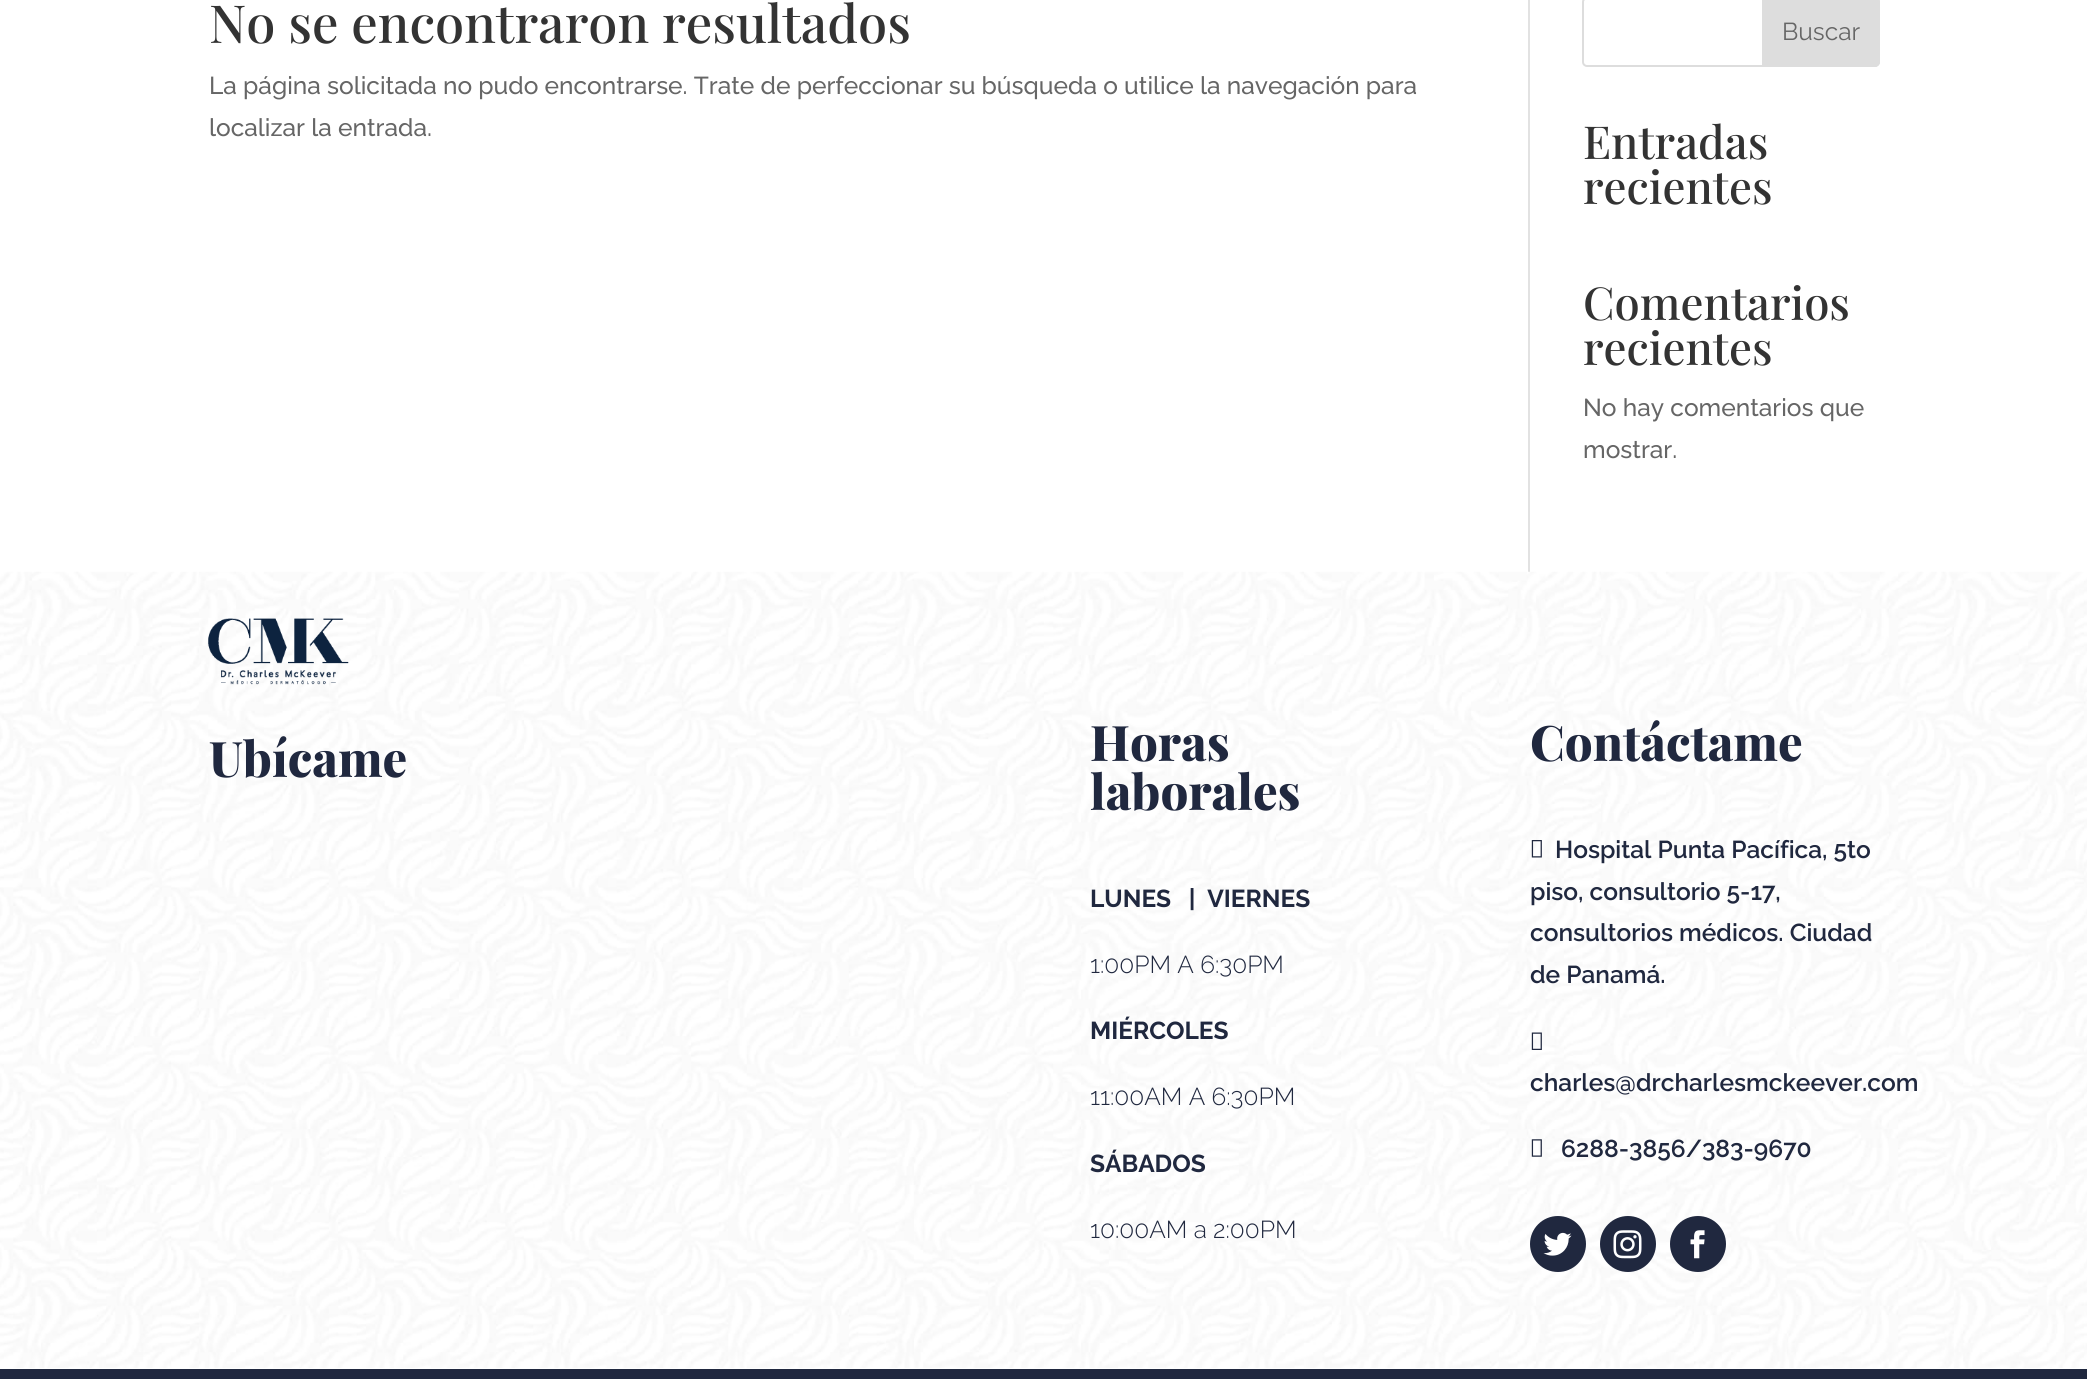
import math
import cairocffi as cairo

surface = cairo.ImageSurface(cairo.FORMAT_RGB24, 2087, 1379)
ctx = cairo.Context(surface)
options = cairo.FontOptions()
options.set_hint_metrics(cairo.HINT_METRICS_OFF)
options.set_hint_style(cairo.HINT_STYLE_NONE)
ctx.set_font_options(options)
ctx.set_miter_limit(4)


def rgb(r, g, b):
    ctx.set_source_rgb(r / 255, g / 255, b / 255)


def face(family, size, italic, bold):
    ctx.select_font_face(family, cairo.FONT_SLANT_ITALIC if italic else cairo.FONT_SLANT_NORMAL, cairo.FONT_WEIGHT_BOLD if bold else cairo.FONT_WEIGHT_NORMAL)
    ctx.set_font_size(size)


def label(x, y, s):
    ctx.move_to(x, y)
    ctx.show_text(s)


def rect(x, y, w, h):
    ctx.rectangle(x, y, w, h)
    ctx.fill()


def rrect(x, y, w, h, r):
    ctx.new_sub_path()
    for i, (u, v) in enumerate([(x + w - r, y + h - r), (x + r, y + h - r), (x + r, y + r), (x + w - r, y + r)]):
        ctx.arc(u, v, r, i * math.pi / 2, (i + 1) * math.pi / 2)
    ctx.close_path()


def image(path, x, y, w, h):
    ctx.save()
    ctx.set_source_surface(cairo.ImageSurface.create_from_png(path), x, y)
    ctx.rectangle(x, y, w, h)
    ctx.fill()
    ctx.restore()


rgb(255, 255, 255)
ctx.paint()
rgb(226, 226, 226)
rect(1528, 0, 2, 572)
face('Playfair Display Medium', 52.5, 0, 0)
rgb(51, 51, 51)
label(209, 43, 'No se encontraron resultados')
face('Raleway Medium', 24.5, 0, 0)
rgb(102, 102, 102)
label(209, 94, 'La página solicitada no pudo encontrarse. Trate de perfeccionar su búsqueda o utilice la navegación para')
label(209, 136, 'localizar la entrada.')
rrect(1583, -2, 296, 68, 4)
rgb(221, 221, 221)
ctx.stroke()
ctx.new_path()
ctx.move_to(1763, -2)
ctx.line_to(1875, -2)
ctx.curve_to(1877, -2, 1879, 0, 1879, 2)
ctx.line_to(1879, 62)
ctx.curve_to(1879, 64, 1877, 66, 1875, 66)
ctx.line_to(1763, 66)
ctx.close_path()
ctx.fill_preserve()
ctx.stroke()
face('Raleway', 24.5, 0, 0)
rgb(102, 102, 102)
label(1782, 40, 'Buscar')
face('Playfair Display Medium', 45.5, 0, 0)
rgb(51, 51, 51)
label(1583, 159, 'Entradas')
label(1583, 204, 'recientes')
label(1583, 320, 'Comentarios')
label(1583, 365, 'recientes')
face('Raleway Medium', 24.5, 0, 0)
rgb(102, 102, 102)
label(1583, 416, 'No hay comentarios que')
label(1583, 458, 'mostrar.')
image('image0.png', 0, 571, 2087, 797)
image('image1.png', 208, 618, 141, 67)
face('Playfair Display ExtraBold', 49, 0, 0)
rgb(32, 40, 63)
label(209, 777, 'Ubícame')
label(1090, 761, 'Horas')
label(1090, 810, 'laborales')
face('Raleway', 24.5, 0, 1)
label(1090, 907, 'LUNES   |  VIERNES')
face('Raleway Light', 24.5, 0, 0)
label(1090, 973, '1:00PM A 6:30PM')
face('Raleway', 24.5, 0, 1)
label(1090, 1039, 'MIÉRCOLES')
face('Raleway Light', 24.5, 0, 0)
label(1090, 1105, '11:00AM A 6:30PM')
face('Raleway', 24.5, 0, 1)
label(1090, 1172, 'SÁBADOS')
face('Raleway Light', 24.5, 0, 0)
label(1090, 1238, '10:00AM a 2:00PM')
face('Playfair Display ExtraBold', 49, 0, 0)
label(1530, 761, 'Contáctame')
image('image2.png', 1531, 840, 11, 18)
face('Raleway SemiBold', 24.5, 0, 0)
label(1555, 858, 'Hospital Punta Pacífica, 5to')
label(1530, 900, 'piso, consultorio 5-17,')
label(1530, 941, 'consultorios médicos. Ciudad')
label(1530, 983, 'de Panamá.')
image('image3.png', 1531, 1032, 11, 18)
label(1530, 1091, 'charles@drcharlesmckeever.com')
image('image4.png', 1531, 1139, 11, 18)
label(1561, 1157, '6288-3856/383-9670')
ctx.new_path()
ctx.arc(1558, 1244, 28, 0, 2 * math.pi)
ctx.fill()
image('image5.png', 1543, 1232, 29, 24)
ctx.arc(1628, 1244, 28, 0, 2 * math.pi)
ctx.fill()
image('image6.png', 1613, 1230, 29, 29)
ctx.arc(1698, 1244, 28, 0, 2 * math.pi)
ctx.fill()
image('image7.png', 1690, 1230, 15, 29)
rect(0, 1369, 2087, 10)
surface.write_to_png('render.png')
